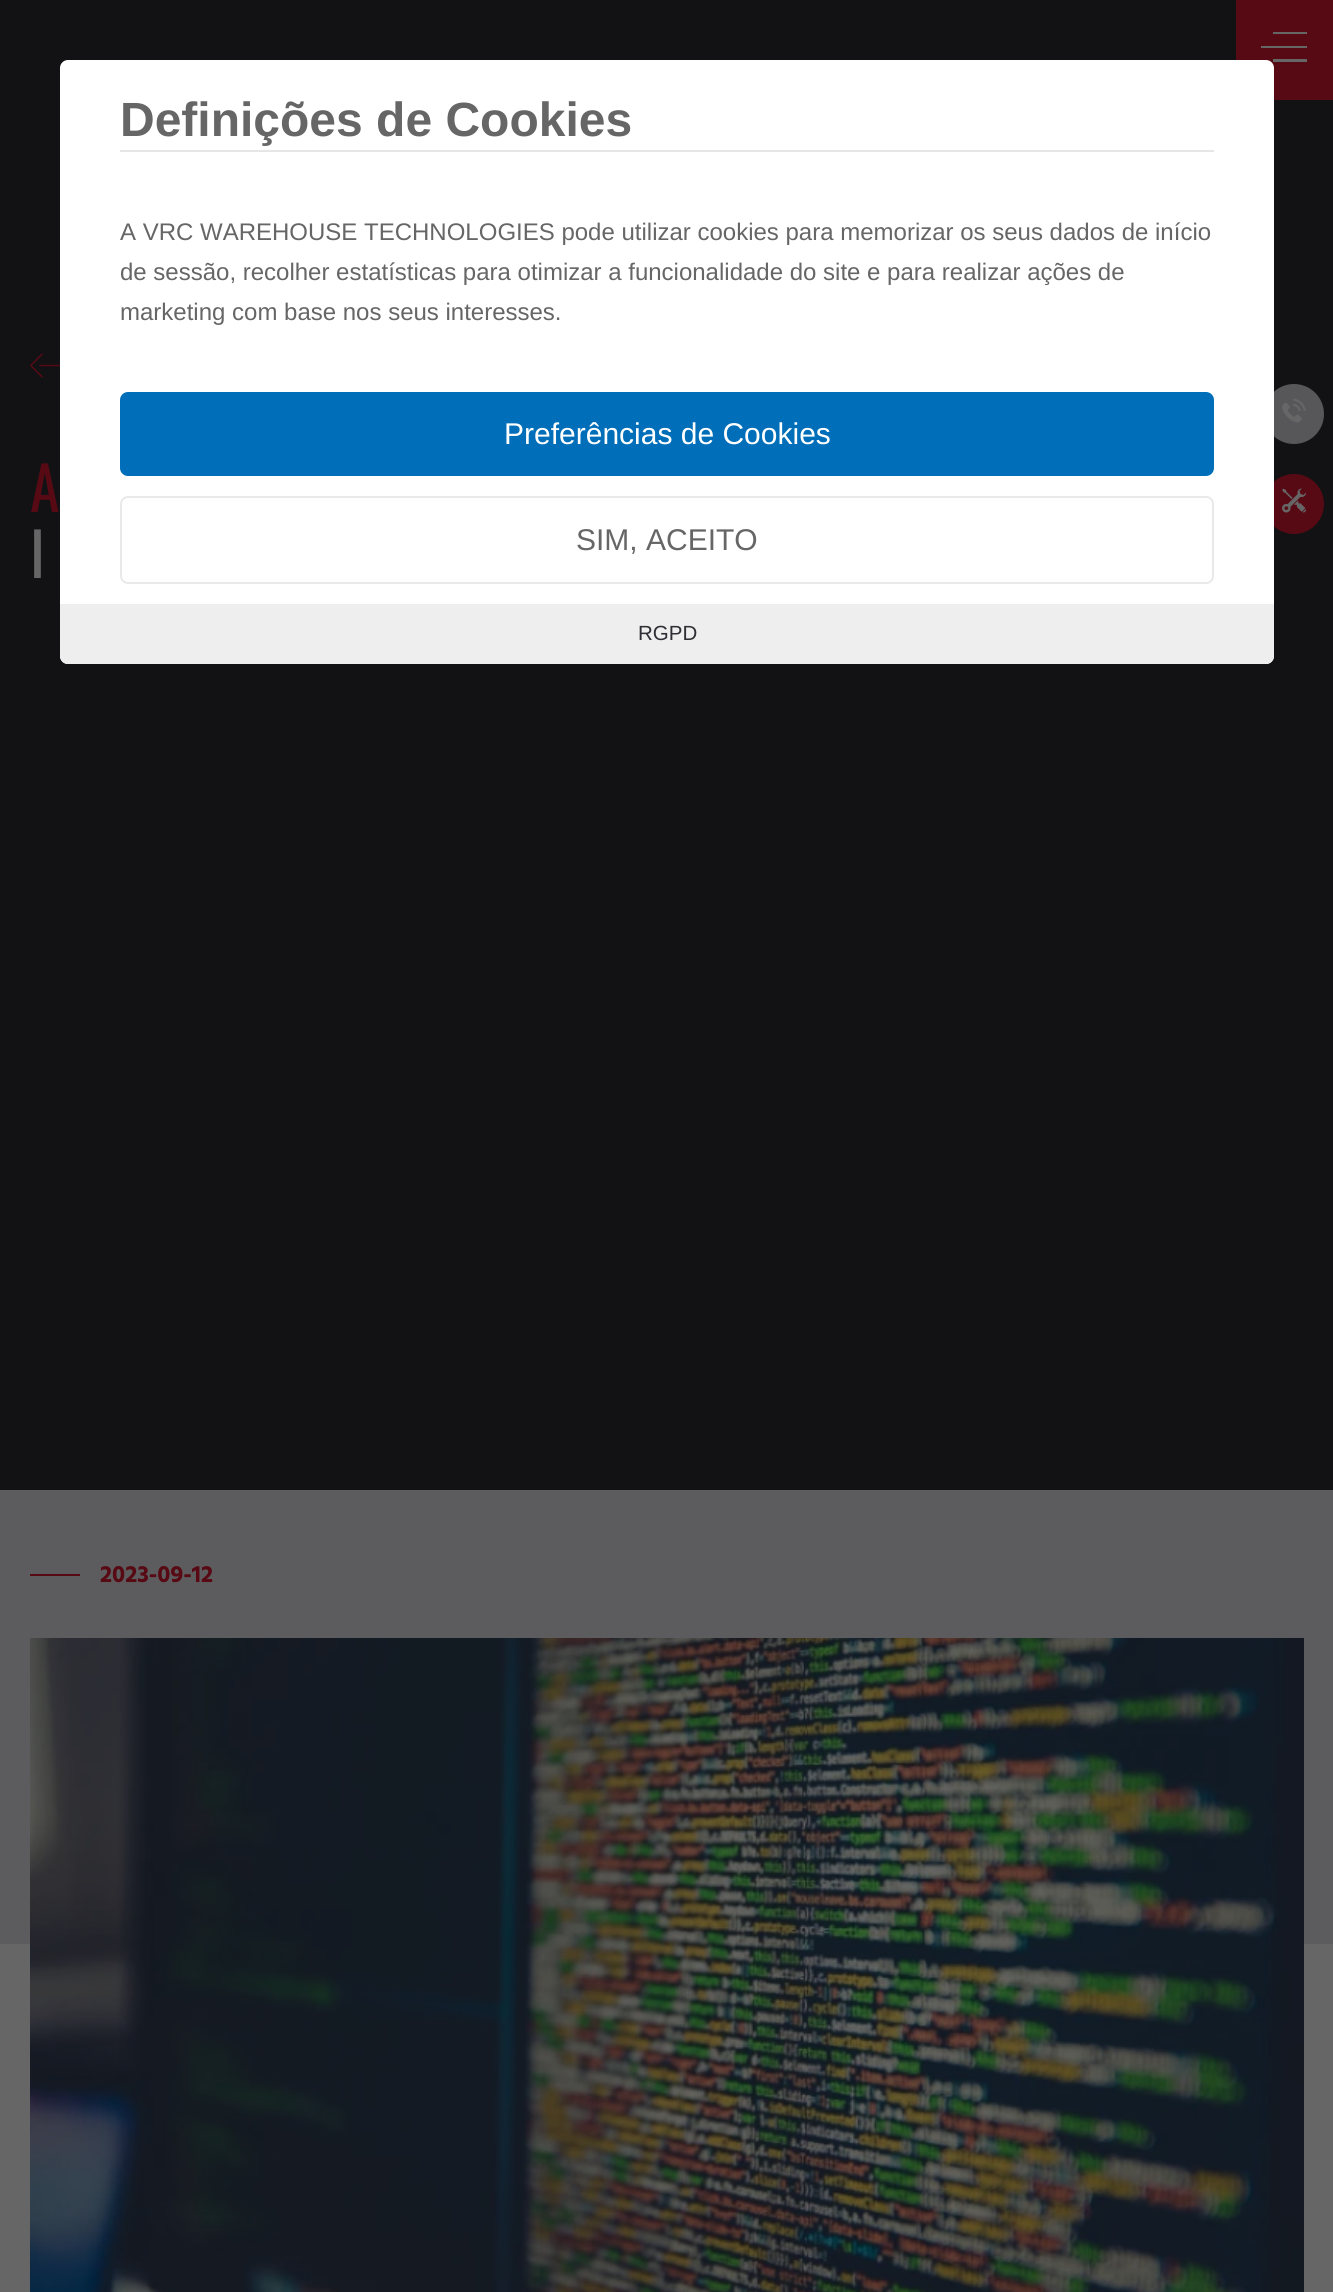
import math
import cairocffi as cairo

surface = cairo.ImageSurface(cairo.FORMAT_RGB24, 1333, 2292)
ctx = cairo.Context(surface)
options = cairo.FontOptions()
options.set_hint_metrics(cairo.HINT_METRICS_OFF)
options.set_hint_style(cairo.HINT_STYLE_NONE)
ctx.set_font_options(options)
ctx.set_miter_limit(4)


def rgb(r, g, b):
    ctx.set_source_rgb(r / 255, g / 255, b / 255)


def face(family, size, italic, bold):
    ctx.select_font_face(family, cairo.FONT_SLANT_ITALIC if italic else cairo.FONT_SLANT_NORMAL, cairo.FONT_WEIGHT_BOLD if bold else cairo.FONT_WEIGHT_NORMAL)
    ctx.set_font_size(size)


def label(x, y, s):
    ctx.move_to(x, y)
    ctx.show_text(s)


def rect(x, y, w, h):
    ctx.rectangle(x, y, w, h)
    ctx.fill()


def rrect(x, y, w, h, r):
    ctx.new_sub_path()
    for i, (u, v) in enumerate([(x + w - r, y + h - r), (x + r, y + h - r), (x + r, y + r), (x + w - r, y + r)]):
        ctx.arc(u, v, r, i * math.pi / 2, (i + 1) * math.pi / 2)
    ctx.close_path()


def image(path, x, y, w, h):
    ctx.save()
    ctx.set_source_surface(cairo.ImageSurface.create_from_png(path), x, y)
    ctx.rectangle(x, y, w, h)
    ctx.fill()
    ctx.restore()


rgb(102, 102, 102)
ctx.paint()
rgb(18, 18, 21)
rect(0, 0, 1333, 1490)
rgb(88, 10, 20)
rect(1236, 0, 97, 100)
rgb(102, 102, 102)
ctx.new_path()
ctx.move_to(1273, 32)
ctx.line_to(1307, 32)
ctx.line_to(1307, 34)
ctx.line_to(1273, 34)
ctx.close_path()
ctx.move_to(1273, 59)
ctx.line_to(1307, 59)
ctx.line_to(1307, 62)
ctx.line_to(1273, 62)
ctx.close_path()
ctx.move_to(1261, 46)
ctx.line_to(1307, 46)
ctx.line_to(1307, 48)
ctx.line_to(1261, 48)
ctx.close_path()
ctx.fill()
image('image0.png', 30, 353, 30, 25)
face('Oswald', 60, 0, 0)
rgb(88, 10, 20)
label(30, 512, 'A')
rgb(102, 102, 102)
label(30, 578, 'I')
rgb(87, 87, 89)
ctx.new_path()
ctx.arc(1294, 414, 30, 0, 2 * math.pi)
ctx.fill()
image('image1.png', 1282, 398, 24, 25)
rgb(88, 10, 20)
ctx.arc(1294, 504, 30, 0, 2 * math.pi)
ctx.fill()
image('image2.png', 1282, 488, 24, 25)
rgb(255, 255, 255)
rrect(60, 60, 1214, 604, 8)
ctx.fill()
rgb(230, 230, 230)
rect(120, 150, 1094, 2)
face('Liberation Sans', 48, 0, 1)
rgb(102, 102, 102)
label(120, 136, 'Definições de Cookies')
face('Liberation Sans', 24, 0, 0)
label(120, 240, 'A VRC WAREHOUSE TECHNOLOGIES pode utilizar cookies para memorizar os seus dados de início')
label(120, 280, 'de sessão, recolher estatísticas para otimizar a funcionalidade do site e para realizar ações de')
label(120, 320, 'marketing com base nos seus interesses.')
rgb(0, 110, 184)
rrect(120, 392, 1094, 84, 8)
ctx.fill()
face('Liberation Sans', 30, 0, 0)
rgb(255, 255, 255)
label(504, 444, 'Preferências de Cookies')
rrect(121, 497, 1092, 86, 7)
rgb(233, 233, 233)
ctx.stroke()
rgb(102, 102, 102)
label(576, 550, 'SIM, ACEITO')
rgb(238, 238, 238)
ctx.new_path()
ctx.move_to(60, 604)
ctx.line_to(1274, 604)
ctx.line_to(1274, 656)
ctx.curve_to(1274, 660.5, 1270.5, 664, 1266, 664)
ctx.line_to(68, 664)
ctx.curve_to(63.5, 664, 60, 660.5, 60, 656)
ctx.close_path()
ctx.fill()
face('Liberation Sans', 20.5, 0, 0)
rgb(46, 46, 52)
label(638, 640, 'RGPD')
rgb(92, 92, 94)
rect(0, 1490, 1333, 454)
rgb(88, 10, 20)
rect(30, 1574, 50, 2)
face('Hind', 24, 0, 1)
label(100, 1582, '2023-09-12')
image('image3.png', 30, 1638, 1274, 654)
surface.write_to_png('render.png')
